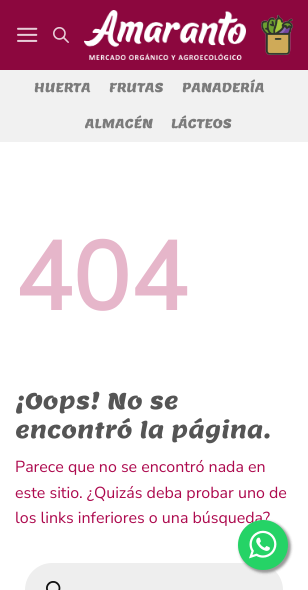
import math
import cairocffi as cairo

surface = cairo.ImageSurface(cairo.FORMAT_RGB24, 308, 590)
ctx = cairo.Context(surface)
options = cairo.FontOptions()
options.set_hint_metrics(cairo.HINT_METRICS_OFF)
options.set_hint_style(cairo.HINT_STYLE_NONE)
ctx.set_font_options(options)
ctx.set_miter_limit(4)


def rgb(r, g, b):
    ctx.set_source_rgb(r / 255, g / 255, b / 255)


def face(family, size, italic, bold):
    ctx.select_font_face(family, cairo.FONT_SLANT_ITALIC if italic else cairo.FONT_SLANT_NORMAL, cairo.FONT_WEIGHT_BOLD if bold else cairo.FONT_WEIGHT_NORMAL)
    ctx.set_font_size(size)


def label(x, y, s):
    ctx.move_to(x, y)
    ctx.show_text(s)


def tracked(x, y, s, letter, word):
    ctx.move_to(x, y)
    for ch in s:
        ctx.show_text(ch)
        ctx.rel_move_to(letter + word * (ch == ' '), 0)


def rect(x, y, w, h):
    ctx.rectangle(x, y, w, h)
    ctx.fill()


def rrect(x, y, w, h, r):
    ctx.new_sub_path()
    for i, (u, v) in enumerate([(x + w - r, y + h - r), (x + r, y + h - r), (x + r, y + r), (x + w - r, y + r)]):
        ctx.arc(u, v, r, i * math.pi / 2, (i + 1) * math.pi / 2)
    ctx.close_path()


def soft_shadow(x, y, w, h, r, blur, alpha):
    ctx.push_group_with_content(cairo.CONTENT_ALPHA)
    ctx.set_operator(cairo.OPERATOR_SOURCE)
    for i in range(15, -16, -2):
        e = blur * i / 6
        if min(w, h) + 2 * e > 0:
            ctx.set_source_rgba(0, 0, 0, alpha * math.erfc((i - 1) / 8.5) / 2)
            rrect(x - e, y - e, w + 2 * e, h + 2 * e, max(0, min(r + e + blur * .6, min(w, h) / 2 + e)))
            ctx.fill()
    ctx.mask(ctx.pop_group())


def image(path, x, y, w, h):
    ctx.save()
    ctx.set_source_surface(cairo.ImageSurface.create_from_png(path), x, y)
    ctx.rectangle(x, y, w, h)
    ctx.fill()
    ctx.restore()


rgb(255, 255, 255)
ctx.paint()
rgb(140, 7, 62)
rect(0, 0, 308, 70)
image('image0.png', 17, 27, 21, 15)
image('image1.png', 53, 27, 16, 16)
image('image2.png', 84, 10, 162, 50)
image('image3.png', 261, 15, 32, 40)
rgb(241, 241, 241)
rect(0, 70, 308, 72)
face('Lemon', 12.75, 0, 0)
rgb(123, 123, 123)
tracked(34, 92, 'HUERTA', 0.25, 0)
tracked(109, 92, 'FRUTAS', 0.25, 0)
tracked(182, 92, 'PANADERÍA', 0.25, 0)
tracked(85, 128, 'ALMACÉN', 0.25, 0)
tracked(171, 128, 'LÁCTEOS', 0.25, 0)
face('Nunito Sans', 96, 0, 1)
rgb(230, 182, 202)
label(15, 310, '404')
face('Lemon', 22.4, 0, 0)
rgb(85, 85, 85)
label(15, 409, '¡Oops! No se')
label(15, 438, 'encontró la página.')
face('Nunito Sans ExtraLight', 16, 0, 0)
rgb(173, 10, 78)
label(15, 472, 'Parece que no se encontró nada en')
label(15, 498, 'este sitio. ¿Quizás deba probar uno de')
label(15, 523, 'los links inferiores o una búsqueda?')
rgb(238, 238, 238)
rrect(25, 563, 258, 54, 27)
ctx.fill()
image('image4.png', 46, 581, 15, 9)
rgb(153, 153, 153)
soft_shadow(240, 522, 50, 50, 25, 1.5, 1)
soft_shadow(240, 522, 50, 50, 25, 1.5, 1)
rgb(37, 211, 102)
ctx.arc(263, 545, 25, 0, 2 * math.pi)
ctx.fill()
image('image5.png', 249, 530, 28, 29)
surface.write_to_png('render.png')
